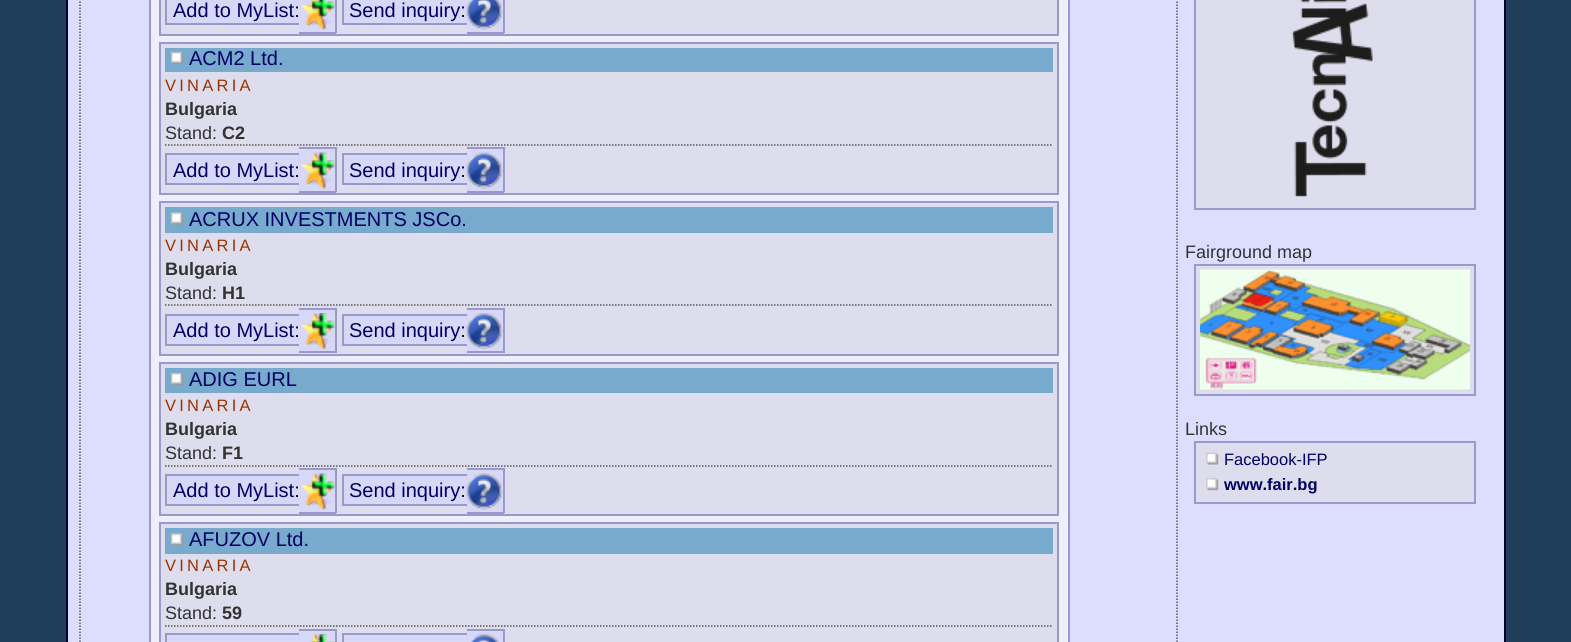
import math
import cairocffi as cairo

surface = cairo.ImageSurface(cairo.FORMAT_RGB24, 1571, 642)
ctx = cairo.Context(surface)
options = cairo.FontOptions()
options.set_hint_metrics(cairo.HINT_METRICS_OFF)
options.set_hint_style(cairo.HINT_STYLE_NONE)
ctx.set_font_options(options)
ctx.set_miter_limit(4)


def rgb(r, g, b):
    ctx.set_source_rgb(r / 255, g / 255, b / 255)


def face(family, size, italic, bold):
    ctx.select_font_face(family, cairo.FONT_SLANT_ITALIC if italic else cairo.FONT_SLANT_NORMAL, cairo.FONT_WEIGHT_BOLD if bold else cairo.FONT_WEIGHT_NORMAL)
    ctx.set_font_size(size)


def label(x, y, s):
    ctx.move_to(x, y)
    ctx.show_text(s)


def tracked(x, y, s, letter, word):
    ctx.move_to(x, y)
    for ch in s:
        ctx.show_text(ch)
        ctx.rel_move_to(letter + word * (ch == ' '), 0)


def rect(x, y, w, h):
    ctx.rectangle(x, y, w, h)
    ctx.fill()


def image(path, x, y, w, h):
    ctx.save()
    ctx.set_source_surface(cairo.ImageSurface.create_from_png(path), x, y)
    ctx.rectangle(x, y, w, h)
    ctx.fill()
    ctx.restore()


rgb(31, 62, 90)
ctx.paint()
rgb(221, 221, 255)
ctx.rectangle(67, -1, 1438, 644)
ctx.fill_preserve()
rgb(0, 0, 51)
ctx.stroke()
ctx.new_path()
ctx.move_to(80, -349.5)
ctx.line_to(80, 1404)
rgb(87, 87, 87)
ctx.set_line_width(1.5)
ctx.set_dash([1.5, 1.5])
ctx.stroke()
rgb(238, 238, 255)
ctx.rectangle(150, -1, 919, 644)
ctx.fill_preserve()
rgb(153, 153, 204)
ctx.set_line_width(2)
ctx.set_dash([])
ctx.stroke()
rgb(221, 221, 238)
ctx.rectangle(160, -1, 898, 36)
ctx.fill_preserve()
rgb(153, 153, 204)
ctx.stroke()
rgb(215, 215, 247)
rect(167, 0, 132, 23)
face('Liberation Sans', 20, 0, 0)
rgb(0, 0, 102)
label(173, 17, 'Add to MyList:')
rgb(153, 153, 204)
rect(165, 23, 134, 2)
rect(165, 0, 2, 24)
rgb(215, 215, 247)
rect(299, 0, 36, 32)
rgb(153, 153, 204)
rect(335, 0, 2, 33)
rect(299, 32, 37, 2)
image('image0.png', 300, 0, 35, 30)
rgb(215, 215, 247)
rect(344, 0, 123, 23)
rgb(0, 0, 102)
label(349, 17, 'Send inquiry:')
rgb(153, 153, 204)
rect(342, 23, 125, 2)
rect(342, 0, 2, 24)
rgb(215, 215, 247)
rect(467, 0, 36, 32)
rgb(153, 153, 204)
rect(503, 0, 2, 33)
rect(467, 32, 37, 2)
image('image1.png', 466, 0, 37, 30)
rgb(221, 221, 238)
ctx.rectangle(160, 43, 898, 151)
ctx.fill_preserve()
rgb(153, 153, 204)
ctx.stroke()
rgb(119, 170, 204)
rect(165, 48, 888, 24)
image('image2.png', 170, 51, 14, 14)
rgb(0, 0, 102)
label(189, 65, 'ACM2 Ltd.')
face('Liberation Sans', 16.5, 0, 0)
rgb(153, 51, 0)
tracked(165, 91, 'VINARIA', 3.25, 0)
face('Liberation Sans', 18, 0, 1)
rgb(51, 51, 51)
label(165, 115, 'Bulgaria')
face('Liberation Sans', 18, 0, 0)
label(165, 139, 'Stand:')
face('Liberation Sans', 18, 0, 1)
label(222, 139, 'C2')
ctx.new_path()
ctx.move_to(165, 145)
ctx.line_to(1053, 145)
rgb(87, 87, 87)
ctx.set_line_width(1.5)
ctx.set_dash([1.5, 1.5])
ctx.stroke()
rgb(215, 215, 247)
rect(167, 155, 132, 28)
face('Liberation Sans', 20, 0, 0)
rgb(0, 0, 102)
label(173, 177, 'Add to MyList:')
rgb(153, 153, 204)
rect(165, 153, 134, 2)
rect(165, 183, 134, 2)
rect(165, 153, 2, 32)
rgb(215, 215, 247)
rect(299, 149, 36, 42)
rgb(153, 153, 204)
rect(299, 147, 37, 2)
rect(335, 147, 2, 45)
rect(299, 191, 37, 2)
image('image3.png', 300, 152, 35, 37)
rgb(215, 215, 247)
rect(344, 155, 123, 28)
rgb(0, 0, 102)
label(349, 177, 'Send inquiry:')
rgb(153, 153, 204)
rect(342, 153, 125, 2)
rect(342, 183, 125, 2)
rect(342, 153, 2, 32)
rgb(215, 215, 247)
rect(467, 149, 36, 42)
rgb(153, 153, 204)
rect(467, 147, 37, 2)
rect(503, 147, 2, 45)
rect(467, 191, 37, 2)
image('image4.png', 466, 152, 37, 37)
rgb(221, 221, 238)
ctx.rectangle(160, 202, 898, 153)
ctx.fill_preserve()
rgb(153, 153, 204)
ctx.set_line_width(2)
ctx.set_dash([])
ctx.stroke()
rgb(119, 170, 204)
rect(165, 207, 888, 26)
image('image5.png', 170, 212, 14, 13)
rgb(0, 0, 102)
label(189, 226, 'ACRUX INVESTMENTS JSCo.')
face('Liberation Sans', 16.5, 0, 0)
rgb(153, 51, 0)
tracked(165, 251, 'VINARIA', 3.25, 0)
face('Liberation Sans', 18, 0, 1)
rgb(51, 51, 51)
label(165, 275, 'Bulgaria')
face('Liberation Sans', 18, 0, 0)
label(165, 299, 'Stand:')
face('Liberation Sans', 18, 0, 1)
label(222, 299, 'H1')
ctx.new_path()
ctx.move_to(165, 305)
ctx.line_to(1053, 305)
rgb(87, 87, 87)
ctx.set_line_width(1.5)
ctx.set_dash([1.5, 1.5])
ctx.stroke()
rgb(215, 215, 247)
rect(167, 316, 132, 28)
face('Liberation Sans', 20, 0, 0)
rgb(0, 0, 102)
label(173, 337, 'Add to MyList:')
rgb(153, 153, 204)
rect(165, 314, 134, 2)
rect(165, 344, 134, 2)
rect(165, 314, 2, 31)
rgb(215, 215, 247)
rect(299, 310, 36, 41)
rgb(153, 153, 204)
rect(299, 308, 37, 2)
rect(335, 308, 2, 45)
rect(299, 351, 37, 2)
image('image6.png', 300, 313, 35, 36)
rgb(215, 215, 247)
rect(344, 316, 123, 28)
rgb(0, 0, 102)
label(349, 337, 'Send inquiry:')
rgb(153, 153, 204)
rect(342, 314, 125, 2)
rect(342, 344, 125, 2)
rect(342, 314, 2, 31)
rgb(215, 215, 247)
rect(467, 310, 36, 41)
rgb(153, 153, 204)
rect(467, 308, 37, 2)
rect(503, 308, 2, 45)
rect(467, 351, 37, 2)
image('image7.png', 466, 313, 37, 36)
rgb(221, 221, 238)
ctx.rectangle(160, 363, 898, 152)
ctx.fill_preserve()
rgb(153, 153, 204)
ctx.set_line_width(2)
ctx.set_dash([])
ctx.stroke()
rgb(119, 170, 204)
rect(165, 368, 888, 25)
image('image2.png', 170, 372, 14, 14)
rgb(0, 0, 102)
label(189, 386, 'ADIG EURL')
face('Liberation Sans', 16.5, 0, 0)
rgb(153, 51, 0)
tracked(165, 411, 'VINARIA', 3.25, 0)
face('Liberation Sans', 18, 0, 1)
rgb(51, 51, 51)
label(165, 435, 'Bulgaria')
face('Liberation Sans', 18, 0, 0)
label(165, 459, 'Stand:')
face('Liberation Sans', 18, 0, 1)
label(222, 459, 'F1')
ctx.new_path()
ctx.move_to(165, 466)
ctx.line_to(1053, 466)
rgb(87, 87, 87)
ctx.set_line_width(1.5)
ctx.set_dash([1.5, 1.5])
ctx.stroke()
rgb(215, 215, 247)
rect(167, 476, 132, 28)
face('Liberation Sans', 20, 0, 0)
rgb(0, 0, 102)
label(173, 497, 'Add to MyList:')
rgb(153, 153, 204)
rect(165, 474, 134, 2)
rect(165, 504, 134, 2)
rect(165, 474, 2, 32)
rgb(215, 215, 247)
rect(299, 470, 36, 42)
rgb(153, 153, 204)
rect(299, 468, 37, 2)
rect(335, 468, 2, 45)
rect(299, 512, 37, 2)
image('image3.png', 300, 473, 35, 37)
rgb(215, 215, 247)
rect(344, 476, 123, 28)
rgb(0, 0, 102)
label(349, 497, 'Send inquiry:')
rgb(153, 153, 204)
rect(342, 474, 125, 2)
rect(342, 504, 125, 2)
rect(342, 474, 2, 32)
rgb(215, 215, 247)
rect(467, 470, 36, 42)
rgb(153, 153, 204)
rect(467, 468, 37, 2)
rect(503, 468, 2, 45)
rect(467, 512, 37, 2)
image('image4.png', 466, 473, 37, 37)
rgb(221, 221, 238)
ctx.rectangle(160, 523, 898, 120)
ctx.fill_preserve()
rgb(153, 153, 204)
ctx.set_line_width(2)
ctx.set_dash([])
ctx.stroke()
rgb(119, 170, 204)
rect(165, 528, 888, 26)
image('image5.png', 170, 533, 14, 13)
rgb(0, 0, 102)
label(189, 546, 'AFUZOV Ltd.')
face('Liberation Sans', 16.5, 0, 0)
rgb(153, 51, 0)
tracked(165, 571, 'VINARIA', 3.25, 0)
face('Liberation Sans', 18, 0, 1)
rgb(51, 51, 51)
label(165, 595, 'Bulgaria')
face('Liberation Sans', 18, 0, 0)
label(165, 619, 'Stand:')
face('Liberation Sans', 18, 0, 1)
label(222, 619, '59')
ctx.new_path()
ctx.move_to(165, 626)
ctx.line_to(1053, 626)
rgb(87, 87, 87)
ctx.set_line_width(1.5)
ctx.set_dash([1.5, 1.5])
ctx.stroke()
rgb(153, 153, 204)
rect(299, 629, 37, 2)
rect(335, 629, 2, 13)
rect(467, 629, 37, 2)
rect(165, 633, 134, 2)
rgb(215, 215, 247)
rect(299, 631, 36, 11)
rect(467, 631, 36, 11)
rgb(153, 153, 204)
rect(503, 629, 2, 13)
rect(165, 633, 2, 9)
rect(342, 633, 125, 2)
rgb(215, 215, 247)
rect(167, 635, 132, 7)
image('image8.png', 311, 634, 24, 8)
rgb(153, 153, 204)
rect(342, 633, 2, 9)
rgb(215, 215, 247)
rect(344, 635, 123, 7)
image('image9.png', 469, 634, 31, 8)
ctx.new_path()
ctx.move_to(1177, -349.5)
ctx.line_to(1177, 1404)
rgb(87, 87, 87)
ctx.stroke()
rgb(221, 221, 238)
ctx.rectangle(1195, -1, 280, 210)
ctx.fill_preserve()
rgb(153, 153, 204)
ctx.set_line_width(2)
ctx.set_dash([])
ctx.stroke()
image('image10.png', 1292, 0, 81, 197)
face('Liberation Sans', 18, 0, 0)
rgb(51, 51, 51)
label(1185, 258, 'Fairground map')
rgb(221, 221, 238)
ctx.rectangle(1195, 265, 280, 130)
ctx.fill_preserve()
rgb(153, 153, 204)
ctx.stroke()
image('image11.png', 1200, 269, 270, 121)
rgb(51, 51, 51)
label(1185, 435, 'Links')
rgb(221, 221, 238)
ctx.rectangle(1195, 442, 280, 61)
ctx.fill_preserve()
rgb(153, 153, 204)
ctx.stroke()
image('image12.png', 1206, 452, 13, 13)
face('Liberation Sans', 16.5, 0, 0)
rgb(0, 0, 102)
label(1224, 465, 'Facebook-IFP')
image('image13.png', 1206, 478, 13, 13)
face('Liberation Sans', 16.5, 0, 1)
label(1224, 490, 'www.fair.bg')
surface.write_to_png('render.png')
